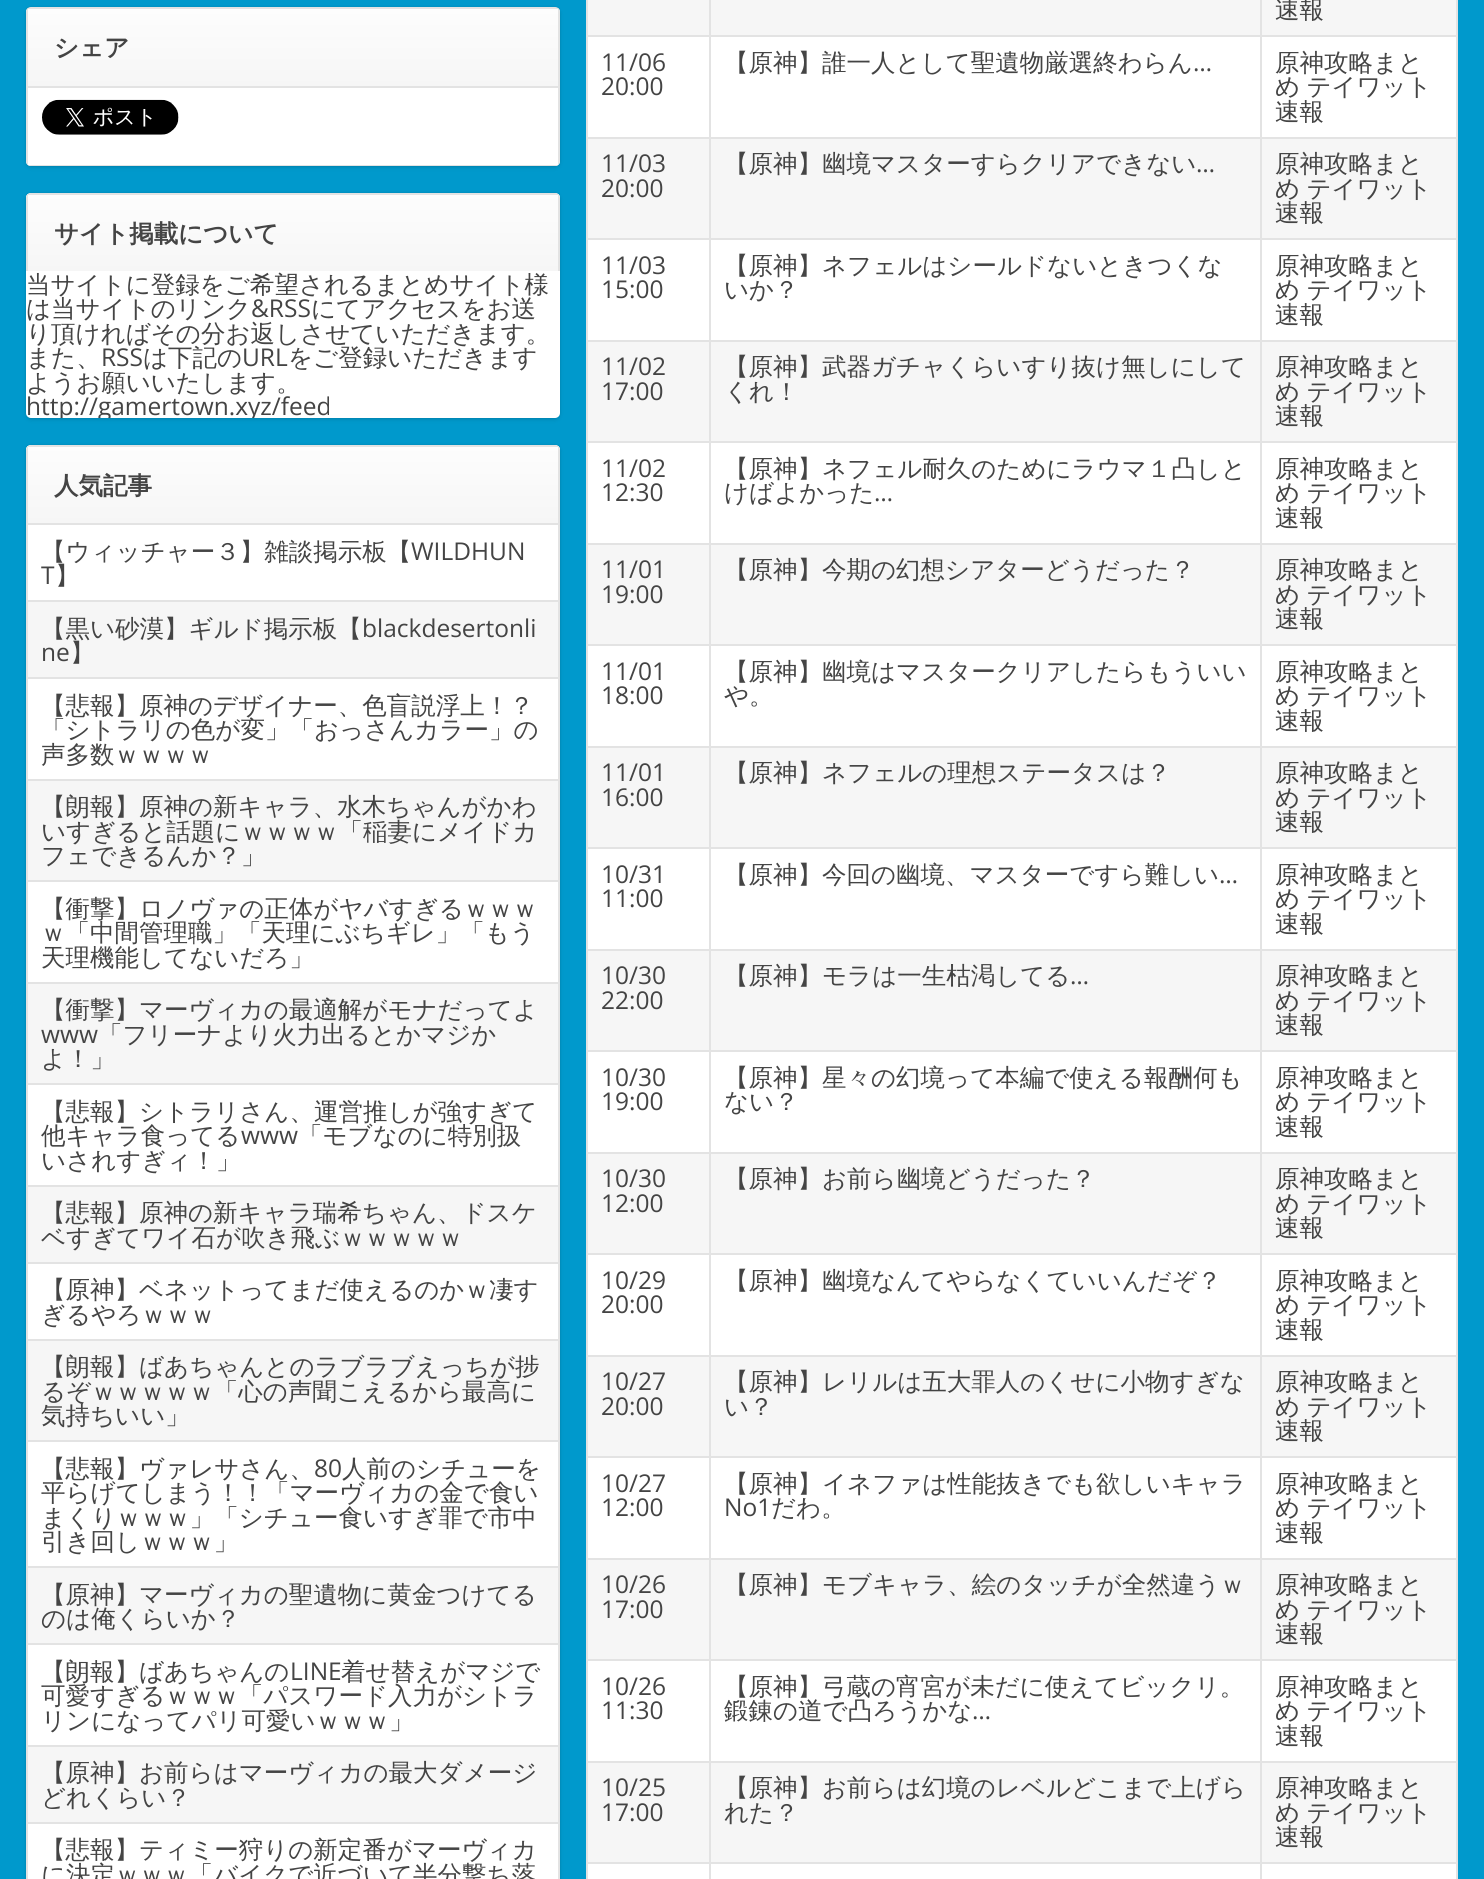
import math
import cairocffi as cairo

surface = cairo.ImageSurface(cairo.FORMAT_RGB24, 1484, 1879)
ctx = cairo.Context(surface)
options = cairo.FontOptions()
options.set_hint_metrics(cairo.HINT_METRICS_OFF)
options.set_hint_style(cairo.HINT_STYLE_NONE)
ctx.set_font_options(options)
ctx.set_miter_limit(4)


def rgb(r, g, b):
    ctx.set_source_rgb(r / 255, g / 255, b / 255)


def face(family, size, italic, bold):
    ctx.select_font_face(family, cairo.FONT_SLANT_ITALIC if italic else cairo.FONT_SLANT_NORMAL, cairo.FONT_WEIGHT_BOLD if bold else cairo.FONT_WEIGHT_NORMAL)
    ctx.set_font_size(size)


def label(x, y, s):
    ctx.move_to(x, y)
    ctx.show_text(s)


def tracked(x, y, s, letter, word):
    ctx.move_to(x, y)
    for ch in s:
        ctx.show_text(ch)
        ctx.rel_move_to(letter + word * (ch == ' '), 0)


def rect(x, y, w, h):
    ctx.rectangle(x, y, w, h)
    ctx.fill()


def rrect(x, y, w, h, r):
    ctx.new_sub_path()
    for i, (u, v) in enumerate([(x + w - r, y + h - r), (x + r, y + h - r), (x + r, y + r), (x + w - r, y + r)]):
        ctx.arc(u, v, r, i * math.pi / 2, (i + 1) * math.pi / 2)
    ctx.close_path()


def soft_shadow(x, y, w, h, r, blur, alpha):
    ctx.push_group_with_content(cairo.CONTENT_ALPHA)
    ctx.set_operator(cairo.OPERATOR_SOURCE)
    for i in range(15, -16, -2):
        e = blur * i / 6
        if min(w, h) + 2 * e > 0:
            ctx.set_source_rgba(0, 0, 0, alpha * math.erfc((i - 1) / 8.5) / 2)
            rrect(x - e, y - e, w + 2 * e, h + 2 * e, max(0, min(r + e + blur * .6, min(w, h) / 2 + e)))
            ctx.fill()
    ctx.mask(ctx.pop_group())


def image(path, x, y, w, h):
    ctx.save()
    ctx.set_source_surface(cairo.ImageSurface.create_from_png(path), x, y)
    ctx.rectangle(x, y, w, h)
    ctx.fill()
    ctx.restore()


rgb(0, 153, 204)
ctx.paint()
rgb(0, 0, 0)
soft_shadow(26, 7, 534, 159, 5, 1, 0.1)
soft_shadow(26, 9, 534, 159, 5, 2, 0.1)
ctx.save()
rrect(26, 7, 534, 159, 5)
ctx.clip()
gradient = cairo.LinearGradient(293, 9, 293, 86)
gradient.add_color_stop_rgba(0, 0.992, 0.992, 0.992, 1)
gradient.add_color_stop_rgba(1, 0.965, 0.965, 0.965, 1)
ctx.set_source(gradient)
rect(26, 9, 534, 77)
rgb(227, 227, 227)
rect(26, 7, 534, 2)
rect(558, 7, 2, 79)
rect(26, 7, 2, 79)
ctx.restore()
face('WenQuanYi Zen Hei', 24.5, 0, 1)
rgb(68, 68, 68)
label(54, 56, 'シェア')
rgb(255, 255, 255)
ctx.new_path()
ctx.move_to(26, 86)
ctx.line_to(560, 86)
ctx.line_to(560, 161)
ctx.curve_to(560, 164, 558, 166, 555, 166)
ctx.line_to(31, 166)
ctx.curve_to(28, 166, 26, 164, 26, 161)
ctx.close_path()
ctx.fill()
rgb(227, 227, 227)
rect(26, 86, 534, 2)
ctx.save()
rrect(26, 7, 534, 159, 5)
ctx.clip()
rect(558, 86, 2, 80)
rect(26, 165, 534, 1)
rect(26, 86, 2, 80)
ctx.restore()
image('image0.png', 42, 99, 137, 36)
rgb(0, 0, 0)
soft_shadow(26, 193, 534, 225, 5, 1, 0.1)
soft_shadow(26, 194, 534, 226, 5, 2, 0.1)
rgb(255, 255, 255)
rrect(26, 193, 534, 225, 5)
ctx.fill()
ctx.save()
rrect(26, 193, 534, 225, 5)
ctx.clip()
gradient = cairo.LinearGradient(293, 194, 293, 271)
gradient.add_color_stop_rgba(0, 0.992, 0.992, 0.992, 1)
gradient.add_color_stop_rgba(1, 0.965, 0.965, 0.965, 1)
ctx.set_source(gradient)
rect(26, 194, 534, 77)
rgb(227, 227, 227)
rect(26, 193, 534, 2)
rect(558, 193, 2, 78)
rect(26, 193, 2, 78)
ctx.restore()
rgb(68, 68, 68)
label(54, 242, 'サイト掲載について')
face('WenQuanYi Zen Hei Medium', 24.5, 0, 0)
label(26, 293, '当サイトに登録をご希望されるまとめサイト様')
label(26, 317, 'は当サイトのリンク')
face('Open Sans', 24.5, 0, 0)
label(251, 317, '&RSS')
face('WenQuanYi Zen Hei Medium', 24.5, 0, 0)
label(311, 317, 'にてアクセスをお送')
label(26, 342, 'り頂ければその分お返しさせていただきます。')
label(26, 366, 'また、')
face('Open Sans', 24.5, 0, 0)
label(101, 366, 'RSS')
face('WenQuanYi Zen Hei Medium', 24.5, 0, 0)
label(143, 366, 'は下記の')
face('Open Sans', 24.5, 0, 0)
label(242, 366, 'URL')
face('WenQuanYi Zen Hei Medium', 24.5, 0, 0)
label(288, 366, 'をご登録いただきます')
label(26, 391, 'ようお願いいたします。')
ctx.save()
rrect(26, 193, 534, 225, 5)
ctx.clip()
face('Open Sans', 24.5, 0, 0)
label(26, 415, 'http://gamertown.xyz/feed')
ctx.restore()
rgb(0, 0, 0)
soft_shadow(26, 445, 534, 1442, 5, 1, 0.1)
soft_shadow(26, 446, 534, 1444, 5, 2, 0.1)
rgb(255, 255, 255)
rrect(26, 445, 534, 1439, 5)
ctx.fill()
ctx.save()
rrect(26, 445, 534, 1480, 5)
ctx.clip()
gradient = cairo.LinearGradient(293, 446, 293, 523)
gradient.add_color_stop_rgba(0, 0.992, 0.992, 0.992, 1)
gradient.add_color_stop_rgba(1, 0.965, 0.965, 0.965, 1)
ctx.set_source(gradient)
rect(26, 446, 534, 77)
rgb(227, 227, 227)
rect(26, 445, 534, 2)
rect(558, 445, 2, 78)
rect(26, 445, 2, 78)
ctx.restore()
face('WenQuanYi Zen Hei', 24.5, 0, 1)
rgb(68, 68, 68)
label(54, 494, '人気記事')
rgb(227, 227, 227)
rect(26, 523, 534, 2)
rect(26, 600, 534, 2)
rect(26, 677, 534, 2)
rect(26, 779, 534, 2)
rect(26, 880, 534, 2)
rect(26, 982, 534, 2)
rect(26, 1083, 534, 2)
rect(26, 1185, 534, 2)
rect(26, 1262, 534, 2)
rect(26, 1339, 534, 2)
rect(26, 1440, 534, 2)
rect(26, 1566, 534, 2)
rect(26, 1643, 534, 2)
rect(26, 1745, 534, 2)
rect(26, 1822, 534, 2)
rect(558, 1822, 2, 57)
rect(558, 1745, 2, 79)
rect(558, 1643, 2, 104)
rect(558, 1566, 2, 79)
rect(558, 1440, 2, 128)
rect(558, 1339, 2, 103)
rect(558, 1262, 2, 79)
rect(558, 1185, 2, 79)
rect(558, 1083, 2, 104)
rect(558, 982, 2, 103)
rect(558, 880, 2, 104)
rect(558, 779, 2, 103)
rect(558, 677, 2, 104)
rect(558, 600, 2, 79)
rect(558, 523, 2, 79)
rect(26, 1822, 2, 57)
rect(26, 1745, 2, 79)
rect(26, 1643, 2, 104)
rect(26, 1566, 2, 79)
rect(26, 1440, 2, 128)
rect(26, 1339, 2, 103)
rect(26, 1262, 2, 79)
rect(26, 1185, 2, 79)
rect(26, 1083, 2, 104)
rect(26, 982, 2, 103)
rect(26, 880, 2, 104)
rect(26, 779, 2, 103)
rect(26, 677, 2, 104)
rect(26, 600, 2, 79)
rect(26, 523, 2, 79)
face('WenQuanYi Zen Hei Medium', 24.5, 0, 0)
rgb(68, 68, 68)
label(41, 560, '【ウィッチャー３】雑談掲示板【')
face('Open Sans', 24.5, 0, 0)
label(411, 560, 'WILDHUN')
label(41, 584, 'T')
face('WenQuanYi Zen Hei Medium', 24.5, 0, 0)
label(55, 584, '】')
rgb(246, 246, 246)
rect(28, 602, 530, 75)
rgb(68, 68, 68)
label(41, 637, '【黒い砂漠】ギルド掲示板【')
face('Open Sans', 24.5, 0, 0)
label(362, 637, 'blackdesertonli')
label(41, 661, 'ne')
face('WenQuanYi Zen Hei Medium', 24.5, 0, 0)
label(70, 661, '】')
label(41, 714, '【悲報】原神のデザイナー、色盲説浮上！？')
label(41, 738, '「シトラリの色が変」「おっさんカラー」の')
label(41, 763, '声多数ｗｗｗｗ')
rgb(246, 246, 246)
rect(28, 781, 530, 99)
rgb(68, 68, 68)
label(41, 815, '【朗報】原神の新キャラ、水木ちゃんがかわ')
label(41, 840, 'いすぎると話題にｗｗｗｗ「稲妻にメイドカ')
label(41, 864, 'フェできるんか？」')
label(41, 917, '【衝撃】ロノヴァの正体がヤバすぎるｗｗｗ')
label(41, 941, 'ｗ「中間管理職」「天理にぶちギレ」「もう')
label(41, 966, '天理機能してないだろ」')
rgb(246, 246, 246)
rect(28, 984, 530, 99)
rgb(68, 68, 68)
label(41, 1018, '【衝撃】マーヴィカの最適解がモナだってよ')
face('Open Sans', 24.5, 0, 0)
label(41, 1043, 'www')
face('WenQuanYi Zen Hei Medium', 24.5, 0, 0)
label(98, 1043, '「フリーナより火力出るとかマジか')
label(41, 1067, 'よ！」')
label(41, 1120, '【悲報】シトラリさん、運営推しが強すぎて')
label(41, 1144, '他キャラ食ってる')
face('Open Sans', 24.5, 0, 0)
label(241, 1144, 'www')
face('WenQuanYi Zen Hei Medium', 24.5, 0, 0)
label(298, 1144, '「モブなのに特別扱')
label(41, 1169, 'いされすぎィ！」')
rgb(246, 246, 246)
rect(28, 1187, 530, 75)
rgb(68, 68, 68)
label(41, 1221, '【悲報】原神の新キャラ瑞希ちゃん、ドスケ')
label(41, 1246, 'ベすぎてワイ石が吹き飛ぶｗｗｗｗｗ')
label(41, 1298, '【原神】ベネットってまだ使えるのかｗ凄す')
label(41, 1323, 'ぎるやろｗｗｗ')
rgb(246, 246, 246)
rect(28, 1341, 530, 99)
rgb(68, 68, 68)
label(41, 1375, '【朗報】ばあちゃんとのラブラブえっちが捗')
label(41, 1400, 'るぞｗｗｗｗｗ「心の声聞こえるから最高に')
label(41, 1424, '気持ちいい」')
label(41, 1477, '【悲報】ヴァレサさん、')
face('Open Sans', 24.5, 0, 0)
label(314, 1477, '80')
face('WenQuanYi Zen Hei Medium', 24.5, 0, 0)
label(342, 1477, '人前のシチューを')
label(41, 1501, '平らげてしまう！！「マーヴィカの金で食い')
label(41, 1526, 'まくりｗｗｗ」「シチュー食いすぎ罪で市中')
label(41, 1550, '引き回しｗｗｗ」')
rgb(246, 246, 246)
rect(28, 1568, 530, 75)
rgb(68, 68, 68)
label(41, 1603, '【原神】マーヴィカの聖遺物に黄金つけてる')
label(41, 1627, 'のは俺くらいか？')
label(41, 1680, '【朗報】ばあちゃんの')
face('Open Sans', 24.5, 0, 0)
label(290, 1680, 'LINE')
face('WenQuanYi Zen Hei Medium', 24.5, 0, 0)
label(341, 1680, '着せ替えがマジで')
label(41, 1704, '可愛すぎるｗｗｗ「パスワード入力がシトラ')
label(41, 1729, 'リンになってパリ可愛いｗｗｗ」')
rgb(246, 246, 246)
rect(28, 1747, 530, 75)
rgb(68, 68, 68)
label(41, 1781, '【原神】お前らはマーヴィカの最大ダメージ')
label(41, 1806, 'どれくらい？')
label(41, 1858, '【悲報】ティミー狩りの新定番がマーヴィカ')
label(41, 1883, 'に決定ｗｗｗ「バイクで近づいて半分撃ち落')
rgb(255, 255, 255)
rect(588, 37, 868, 1842)
rgb(227, 227, 227)
rect(586, 1862, 872, 2)
rect(1456, 1862, 2, 17)
rect(586, 1862, 2, 17)
rgb(246, 246, 246)
rect(588, 0, 868, 35)
rgb(227, 227, 227)
rect(586, 35, 872, 2)
rgb(246, 246, 246)
rect(588, 139, 868, 99)
rgb(227, 227, 227)
rect(586, 137, 872, 2)
rect(586, 238, 872, 2)
rgb(246, 246, 246)
rect(588, 342, 868, 99)
rgb(227, 227, 227)
rect(586, 340, 872, 2)
rect(586, 441, 872, 2)
rgb(246, 246, 246)
rect(588, 545, 868, 99)
rgb(227, 227, 227)
rect(586, 543, 872, 2)
rect(586, 644, 872, 2)
rgb(246, 246, 246)
rect(588, 748, 868, 99)
rgb(227, 227, 227)
rect(586, 746, 872, 2)
rect(586, 847, 872, 2)
rgb(246, 246, 246)
rect(588, 951, 868, 99)
rgb(227, 227, 227)
rect(586, 949, 872, 2)
rect(586, 1050, 872, 2)
rgb(246, 246, 246)
rect(588, 1154, 868, 99)
rgb(227, 227, 227)
rect(586, 1152, 872, 2)
rect(586, 1253, 872, 2)
rgb(246, 246, 246)
rect(588, 1357, 868, 99)
rgb(227, 227, 227)
rect(586, 1355, 872, 2)
rect(586, 1456, 872, 2)
rgb(246, 246, 246)
rect(588, 1560, 868, 99)
rgb(227, 227, 227)
rect(586, 1558, 872, 2)
rect(586, 1659, 872, 2)
rgb(246, 246, 246)
rect(588, 1763, 868, 99)
rgb(227, 227, 227)
rect(586, 1761, 872, 2)
rect(709, 0, 2, 1879)
rect(1260, 0, 2, 1879)
rgb(68, 68, 68)
label(1275, 18, '速報')
rgb(227, 227, 227)
rect(1456, 1761, 2, 103)
rect(1456, 1659, 2, 103)
rect(1456, 1558, 2, 103)
rect(1456, 1456, 2, 103)
rect(1456, 1355, 2, 103)
rect(1456, 1253, 2, 103)
rect(1456, 1152, 2, 103)
rect(1456, 1050, 2, 103)
rect(1456, 949, 2, 103)
rect(1456, 847, 2, 103)
rect(1456, 746, 2, 103)
rect(1456, 644, 2, 103)
rect(1456, 543, 2, 103)
rect(1456, 441, 2, 103)
rect(1456, 340, 2, 103)
rect(1456, 238, 2, 103)
rect(1456, 137, 2, 103)
rect(1456, 0, 2, 138)
rect(586, 1761, 2, 103)
rect(586, 1659, 2, 103)
rect(586, 1558, 2, 103)
rect(586, 1456, 2, 103)
rect(586, 1355, 2, 103)
rect(586, 1253, 2, 103)
rect(586, 1152, 2, 103)
rect(586, 1050, 2, 103)
rect(586, 949, 2, 103)
rect(586, 847, 2, 103)
rect(586, 746, 2, 103)
rect(586, 644, 2, 103)
rect(586, 543, 2, 103)
rect(586, 441, 2, 103)
rect(586, 340, 2, 103)
rect(586, 238, 2, 103)
rect(586, 137, 2, 103)
rect(586, 0, 2, 138)
face('Open Sans', 24.5, 0, 0)
rgb(68, 68, 68)
label(601, 71, '11/06')
label(601, 95, '20:00')
face('WenQuanYi Zen Hei Medium', 24.5, 0, 0)
label(724, 71, '【原神】誰一人として聖遺物厳選終わらん')
face('Open Sans', 24.5, 0, 0)
label(1193, 71, '…')
face('WenQuanYi Zen Hei Medium', 24.5, 0, 0)
label(1275, 71, '原神攻略まと')
tracked(1275, 95, 'め テイワット', 0, -1)
label(1275, 120, '速報')
face('Open Sans', 24.5, 0, 0)
label(601, 172, '11/03')
label(601, 197, '20:00')
face('WenQuanYi Zen Hei Medium', 24.5, 0, 0)
label(724, 172, '【原神】幽境マスターすらクリアできない')
face('Open Sans', 24.5, 0, 0)
label(1196, 172, '…')
face('WenQuanYi Zen Hei Medium', 24.5, 0, 0)
label(1275, 172, '原神攻略まと')
tracked(1275, 197, 'め テイワット', 0, -1)
label(1275, 221, '速報')
face('Open Sans', 24.5, 0, 0)
label(601, 274, '11/03')
label(601, 298, '15:00')
face('WenQuanYi Zen Hei Medium', 24.5, 0, 0)
label(724, 274, '【原神】ネフェルはシールドないときつくな')
label(724, 298, 'いか？')
label(1275, 274, '原神攻略まと')
tracked(1275, 298, 'め テイワット', 0, -1)
label(1275, 323, '速報')
face('Open Sans', 24.5, 0, 0)
label(601, 375, '11/02')
label(601, 400, '17:00')
face('WenQuanYi Zen Hei Medium', 24.5, 0, 0)
label(724, 375, '【原神】武器ガチャくらいすり抜け無しにして')
label(724, 400, 'くれ！')
label(1275, 375, '原神攻略まと')
tracked(1275, 400, 'め テイワット', 0, -1)
label(1275, 424, '速報')
face('Open Sans', 24.5, 0, 0)
label(601, 477, '11/02')
label(601, 501, '12:30')
face('WenQuanYi Zen Hei Medium', 24.5, 0, 0)
label(724, 477, '【原神】ネフェル耐久のためにラウマ１凸しと')
label(724, 501, 'けばよかった')
face('Open Sans', 24.5, 0, 0)
label(874, 501, '…')
face('WenQuanYi Zen Hei Medium', 24.5, 0, 0)
label(1275, 477, '原神攻略まと')
tracked(1275, 501, 'め テイワット', 0, -1)
label(1275, 526, '速報')
face('Open Sans', 24.5, 0, 0)
label(601, 578, '11/01')
label(601, 603, '19:00')
face('WenQuanYi Zen Hei Medium', 24.5, 0, 0)
label(724, 578, '【原神】今期の幻想シアターどうだった？')
label(1275, 578, '原神攻略まと')
tracked(1275, 603, 'め テイワット', 0, -1)
label(1275, 627, '速報')
face('Open Sans', 24.5, 0, 0)
label(601, 680, '11/01')
label(601, 704, '18:00')
face('WenQuanYi Zen Hei Medium', 24.5, 0, 0)
label(724, 680, '【原神】幽境はマスタークリアしたらもういい')
label(724, 704, 'や。')
label(1275, 680, '原神攻略まと')
tracked(1275, 704, 'め テイワット', 0, -1)
label(1275, 729, '速報')
face('Open Sans', 24.5, 0, 0)
label(601, 781, '11/01')
label(601, 806, '16:00')
face('WenQuanYi Zen Hei Medium', 24.5, 0, 0)
label(724, 781, '【原神】ネフェルの理想ステータスは？')
label(1275, 781, '原神攻略まと')
tracked(1275, 806, 'め テイワット', 0, -1)
label(1275, 830, '速報')
face('Open Sans', 24.5, 0, 0)
label(601, 883, '10/31')
label(601, 907, '11:00')
face('WenQuanYi Zen Hei Medium', 24.5, 0, 0)
label(724, 883, '【原神】今回の幽境、マスターですら難しい')
face('Open Sans', 24.5, 0, 0)
label(1219, 883, '…')
face('WenQuanYi Zen Hei Medium', 24.5, 0, 0)
label(1275, 883, '原神攻略まと')
tracked(1275, 907, 'め テイワット', 0, -1)
label(1275, 932, '速報')
face('Open Sans', 24.5, 0, 0)
label(601, 984, '10/30')
label(601, 1009, '22:00')
face('WenQuanYi Zen Hei Medium', 24.5, 0, 0)
label(724, 984, '【原神】モラは一生枯渇してる')
face('Open Sans', 24.5, 0, 0)
label(1070, 984, '…')
face('WenQuanYi Zen Hei Medium', 24.5, 0, 0)
label(1275, 984, '原神攻略まと')
tracked(1275, 1009, 'め テイワット', 0, -1)
label(1275, 1033, '速報')
face('Open Sans', 24.5, 0, 0)
label(601, 1086, '10/30')
label(601, 1110, '19:00')
face('WenQuanYi Zen Hei Medium', 24.5, 0, 0)
label(724, 1086, '【原神】星々の幻境って本編で使える報酬何も')
label(724, 1110, 'ない？')
label(1275, 1086, '原神攻略まと')
tracked(1275, 1110, 'め テイワット', 0, -1)
label(1275, 1135, '速報')
face('Open Sans', 24.5, 0, 0)
label(601, 1187, '10/30')
label(601, 1212, '12:00')
face('WenQuanYi Zen Hei Medium', 24.5, 0, 0)
label(724, 1187, '【原神】お前ら幽境どうだった？')
label(1275, 1187, '原神攻略まと')
tracked(1275, 1212, 'め テイワット', 0, -1)
label(1275, 1236, '速報')
face('Open Sans', 24.5, 0, 0)
label(601, 1289, '10/29')
label(601, 1313, '20:00')
face('WenQuanYi Zen Hei Medium', 24.5, 0, 0)
label(724, 1289, '【原神】幽境なんてやらなくていいんだぞ？')
label(1275, 1289, '原神攻略まと')
tracked(1275, 1313, 'め テイワット', 0, -1)
label(1275, 1338, '速報')
face('Open Sans', 24.5, 0, 0)
label(601, 1390, '10/27')
label(601, 1415, '20:00')
face('WenQuanYi Zen Hei Medium', 24.5, 0, 0)
label(724, 1390, '【原神】レリルは五大罪人のくせに小物すぎな')
label(724, 1415, 'い？')
label(1275, 1390, '原神攻略まと')
tracked(1275, 1415, 'め テイワット', 0, -1)
label(1275, 1439, '速報')
face('Open Sans', 24.5, 0, 0)
label(601, 1492, '10/27')
label(601, 1516, '12:00')
face('WenQuanYi Zen Hei Medium', 24.5, 0, 0)
label(724, 1492, '【原神】イネファは性能抜きでも欲しいキャラ')
face('Open Sans', 24.5, 0, 0)
label(724, 1516, 'No1')
face('WenQuanYi Zen Hei Medium', 24.5, 0, 0)
label(771, 1516, 'だわ。')
label(1275, 1492, '原神攻略まと')
tracked(1275, 1516, 'め テイワット', 0, -1)
label(1275, 1541, '速報')
face('Open Sans', 24.5, 0, 0)
label(601, 1593, '10/26')
label(601, 1618, '17:00')
face('WenQuanYi Zen Hei Medium', 24.5, 0, 0)
label(724, 1593, '【原神】モブキャラ、絵のタッチが全然違うｗ')
label(1275, 1593, '原神攻略まと')
tracked(1275, 1618, 'め テイワット', 0, -1)
label(1275, 1642, '速報')
face('Open Sans', 24.5, 0, 0)
label(601, 1695, '10/26')
label(601, 1719, '11:30')
face('WenQuanYi Zen Hei Medium', 24.5, 0, 0)
label(724, 1695, '【原神】弓蔵の宵宮が未だに使えてビックリ。')
label(724, 1719, '鍛錬の道で凸ろうかな')
face('Open Sans', 24.5, 0, 0)
label(972, 1719, '…')
face('WenQuanYi Zen Hei Medium', 24.5, 0, 0)
label(1275, 1695, '原神攻略まと')
tracked(1275, 1719, 'め テイワット', 0, -1)
label(1275, 1744, '速報')
face('Open Sans', 24.5, 0, 0)
label(601, 1796, '10/25')
label(601, 1821, '17:00')
face('WenQuanYi Zen Hei Medium', 24.5, 0, 0)
label(724, 1796, '【原神】お前らは幻境のレベルどこまで上げら')
label(724, 1821, 'れた？')
label(1275, 1796, '原神攻略まと')
tracked(1275, 1821, 'め テイワット', 0, -1)
label(1275, 1845, '速報')
surface.write_to_png('render.png')
